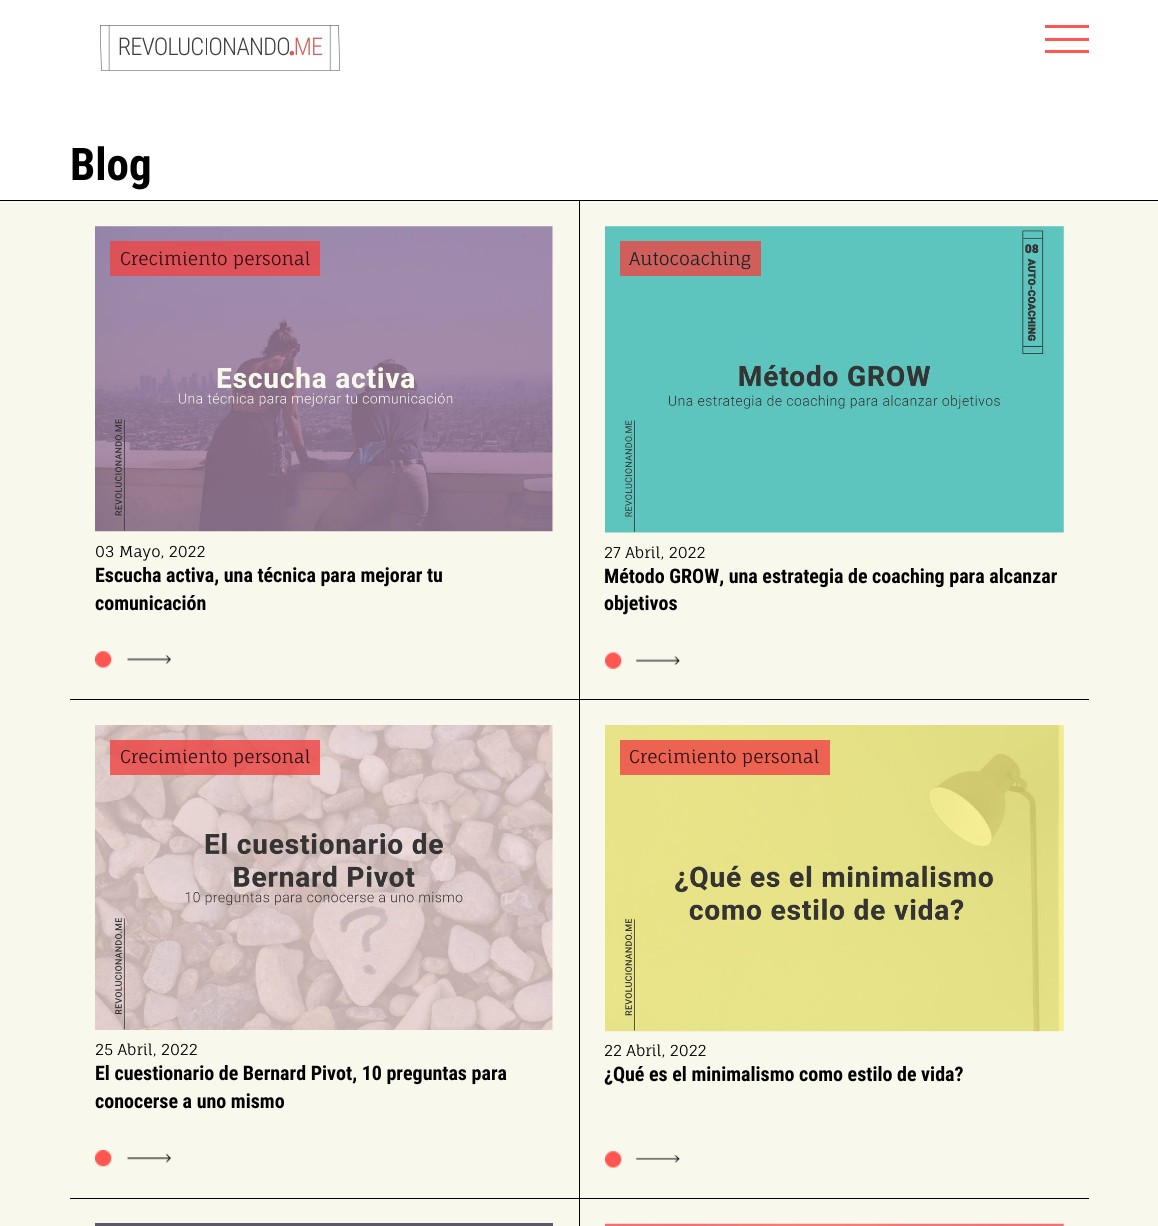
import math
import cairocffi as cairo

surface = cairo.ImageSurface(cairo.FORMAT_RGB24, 1158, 1226)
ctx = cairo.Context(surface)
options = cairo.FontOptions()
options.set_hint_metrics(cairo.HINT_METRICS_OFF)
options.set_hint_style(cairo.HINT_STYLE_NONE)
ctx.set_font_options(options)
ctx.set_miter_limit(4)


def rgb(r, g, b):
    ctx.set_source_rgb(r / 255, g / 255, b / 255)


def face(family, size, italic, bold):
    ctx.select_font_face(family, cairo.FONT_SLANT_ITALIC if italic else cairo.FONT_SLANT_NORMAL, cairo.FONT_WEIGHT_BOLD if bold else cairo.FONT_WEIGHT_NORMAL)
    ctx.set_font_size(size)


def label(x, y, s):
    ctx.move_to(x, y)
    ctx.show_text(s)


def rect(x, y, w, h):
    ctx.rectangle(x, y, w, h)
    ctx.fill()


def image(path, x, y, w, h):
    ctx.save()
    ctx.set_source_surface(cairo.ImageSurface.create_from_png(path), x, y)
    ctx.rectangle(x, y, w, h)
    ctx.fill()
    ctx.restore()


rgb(255, 255, 255)
ctx.paint()
image('image0.png', 100, 25, 240, 46)
rgb(255, 86, 82)
rect(1045, 25, 44, 3)
rect(1045, 38, 44, 3)
rect(1045, 50, 44, 3)
rgb(0, 0, 0)
rect(0, 200, 1158, 1)
face('Roboto Condensed', 45, 0, 1)
label(70, 180, 'Blog')
rgb(248, 248, 236)
rect(0, 201, 1158, 1025)
rgb(0, 0, 0)
rect(579, 201, 1, 1025)
rect(70, 699, 1019, 1)
image('image1.png', 95, 226, 458, 306)
ctx.set_source_rgba(0.937, 0.267, 0.267, 0.8)
rect(110, 241, 210, 35)
face('Fauna One', 17.5, 0, 0)
rgb(44, 16, 18)
label(120, 265, 'Crecimiento personal')
face('Fauna One', 15, 0, 0)
rgb(0, 0, 0)
label(95, 557, '03 Mayo, 2022')
face('Roboto Condensed', 20, 0, 1)
label(95, 582, 'Escucha activa, una técnica para mejorar tu')
label(95, 610, 'comunicación')
image('image2.png', 95, 651, 17, 17)
image('image3.png', 127, 655, 45, 9)
image('image4.png', 605, 226, 459, 307)
rgb(210, 94, 92)
rect(620, 241, 141, 35)
face('Fauna One', 17.5, 0, 0)
rgb(19, 39, 38)
label(629, 265, 'Autocoaching')
face('Fauna One', 15, 0, 0)
rgb(0, 0, 0)
label(604, 558, '27 Abril, 2022')
face('Roboto Condensed', 20, 0, 1)
label(604, 583, 'Método GROW, una estrategia de coaching para alcanzar')
label(604, 610, 'objetivos')
image('image5.png', 605, 652, 17, 17)
image('image6.png', 636, 656, 44, 9)
rect(70, 1198, 1019, 1)
image('image7.png', 95, 725, 458, 305)
ctx.set_source_rgba(0.937, 0.267, 0.267, 0.8)
rect(110, 740, 210, 35)
face('Fauna One', 17.5, 0, 0)
rgb(44, 16, 18)
label(120, 763, 'Crecimiento personal')
face('Fauna One', 15, 0, 0)
rgb(0, 0, 0)
label(95, 1055, '25 Abril, 2022')
face('Roboto Condensed', 20, 0, 1)
label(95, 1080, 'El cuestionario de Bernard Pivot, 10 preguntas para')
label(95, 1108, 'conocerse a uno mismo')
image('image8.png', 95, 1150, 17, 17)
image('image9.png', 127, 1153, 45, 10)
image('image10.png', 605, 725, 459, 307)
ctx.set_source_rgba(0.937, 0.267, 0.267, 0.8)
rect(620, 740, 210, 35)
face('Fauna One', 17.5, 0, 0)
rgb(44, 16, 18)
label(629, 763, 'Crecimiento personal')
face('Fauna One', 15, 0, 0)
rgb(0, 0, 0)
label(604, 1056, '22 Abril, 2022')
face('Roboto Condensed', 20, 0, 1)
label(604, 1081, '¿Qué es el minimalismo como estilo de vida?')
image('image2.png', 605, 1151, 17, 17)
image('image11.png', 636, 1155, 44, 8)
rgb(92, 87, 107)
rect(95, 1223, 458, 3)
image('image12.png', 605, 1223, 459, 3)
surface.write_to_png('render.png')
